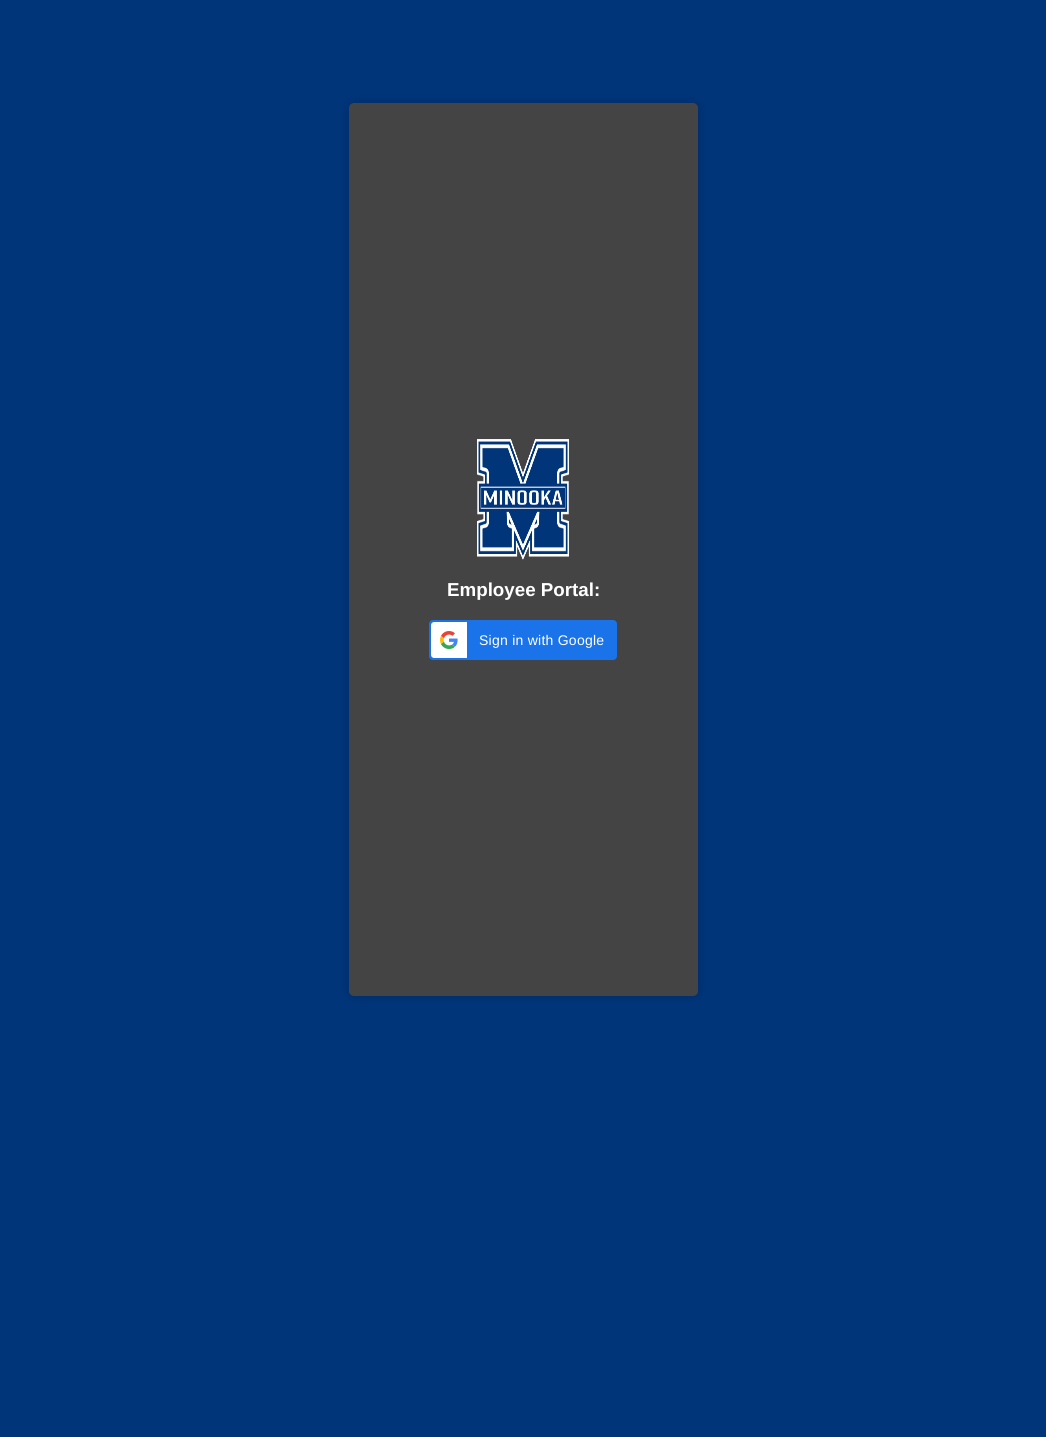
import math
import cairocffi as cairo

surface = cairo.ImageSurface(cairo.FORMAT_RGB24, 1046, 1437)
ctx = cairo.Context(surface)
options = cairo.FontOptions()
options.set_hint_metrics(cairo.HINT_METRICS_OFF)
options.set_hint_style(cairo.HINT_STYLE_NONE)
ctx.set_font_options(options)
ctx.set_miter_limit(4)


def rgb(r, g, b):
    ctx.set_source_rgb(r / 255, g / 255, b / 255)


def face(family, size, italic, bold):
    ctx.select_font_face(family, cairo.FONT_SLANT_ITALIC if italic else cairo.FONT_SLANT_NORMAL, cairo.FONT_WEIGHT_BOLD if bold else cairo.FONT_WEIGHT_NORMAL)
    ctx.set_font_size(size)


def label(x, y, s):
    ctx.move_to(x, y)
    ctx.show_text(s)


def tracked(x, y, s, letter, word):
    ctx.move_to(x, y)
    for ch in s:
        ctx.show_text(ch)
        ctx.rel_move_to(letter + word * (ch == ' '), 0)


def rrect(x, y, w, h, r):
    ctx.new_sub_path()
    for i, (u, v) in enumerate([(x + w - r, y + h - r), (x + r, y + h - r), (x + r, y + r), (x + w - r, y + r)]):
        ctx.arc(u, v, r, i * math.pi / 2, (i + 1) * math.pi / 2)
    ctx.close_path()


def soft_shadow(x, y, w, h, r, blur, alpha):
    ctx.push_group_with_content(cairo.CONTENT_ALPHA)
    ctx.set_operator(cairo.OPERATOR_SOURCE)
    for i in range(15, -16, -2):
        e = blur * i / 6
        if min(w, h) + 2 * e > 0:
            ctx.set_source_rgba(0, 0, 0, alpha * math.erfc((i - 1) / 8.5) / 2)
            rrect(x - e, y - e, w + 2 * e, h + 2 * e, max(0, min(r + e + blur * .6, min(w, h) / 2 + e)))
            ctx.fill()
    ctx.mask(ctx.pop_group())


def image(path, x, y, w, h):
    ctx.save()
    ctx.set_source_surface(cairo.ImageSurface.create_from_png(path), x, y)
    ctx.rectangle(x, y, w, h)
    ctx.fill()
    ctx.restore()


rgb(0, 53, 122)
ctx.paint()
rgb(0, 0, 0)
soft_shadow(349, 103, 349, 893, 5, 5, 0.2)
rgb(68, 68, 68)
rrect(349, 103, 349, 893, 5)
ctx.fill()
image('image0.png', 477, 439, 92, 121)
face('Liberation Sans', 18.75, 0, 1)
rgb(255, 255, 255)
label(447, 596, 'Employee Portal:')
rgb(26, 115, 232)
rrect(429, 620, 188, 40, 4)
ctx.fill()
rgb(255, 255, 255)
ctx.new_path()
ctx.move_to(434, 622)
ctx.line_to(467, 622)
ctx.line_to(467, 658)
ctx.line_to(434, 658)
ctx.curve_to(432.5, 658, 431, 656.5, 431, 655)
ctx.line_to(431, 625)
ctx.curve_to(431, 623.5, 432.5, 622, 434, 622)
ctx.close_path()
ctx.fill()
image('image1.png', 440, 631, 18, 18)
face('Liberation Sans', 14, 0, 0)
tracked(479, 645, 'Sign in with Google', 0.25, 0)
surface.write_to_png('render.png')
